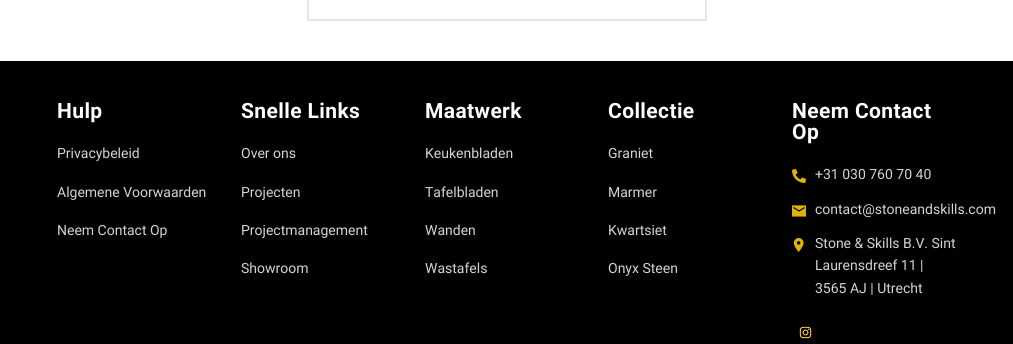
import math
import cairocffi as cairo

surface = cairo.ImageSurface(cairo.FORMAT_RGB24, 1013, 344)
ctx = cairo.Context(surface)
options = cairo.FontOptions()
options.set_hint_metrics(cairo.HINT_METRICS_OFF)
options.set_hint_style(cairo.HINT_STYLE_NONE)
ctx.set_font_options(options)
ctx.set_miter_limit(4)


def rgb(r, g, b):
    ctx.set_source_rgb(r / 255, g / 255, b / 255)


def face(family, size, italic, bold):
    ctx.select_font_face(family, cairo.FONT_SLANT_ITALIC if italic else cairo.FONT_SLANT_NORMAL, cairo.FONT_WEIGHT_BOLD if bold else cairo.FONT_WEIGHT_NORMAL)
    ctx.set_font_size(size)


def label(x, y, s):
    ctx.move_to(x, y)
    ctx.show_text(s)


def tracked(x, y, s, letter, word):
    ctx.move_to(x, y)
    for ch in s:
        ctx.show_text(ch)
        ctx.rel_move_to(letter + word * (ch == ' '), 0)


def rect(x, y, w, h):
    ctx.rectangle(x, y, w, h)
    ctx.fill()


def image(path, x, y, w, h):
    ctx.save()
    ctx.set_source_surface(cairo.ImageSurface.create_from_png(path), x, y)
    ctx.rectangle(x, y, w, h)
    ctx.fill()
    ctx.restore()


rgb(255, 255, 255)
ctx.paint()
ctx.rectangle(308, -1, 398, 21)
rgb(230, 230, 230)
ctx.stroke()
rgb(0, 0, 0)
rect(0, 61, 1013, 283)
face('Roboto', 21, 0, 1)
rgb(255, 255, 255)
tracked(57, 118, 'Hulp', 0.4, 0)
face('Roboto', 14, 0, 0)
rgb(212, 212, 212)
label(57, 158, 'Privacybeleid')
label(57, 197, 'Algemene Voorwaarden')
label(57, 235, 'Neem Contact Op')
face('Roboto', 21, 0, 1)
rgb(255, 255, 255)
tracked(241, 118, 'Snelle Links', 0.4, 0)
face('Roboto', 14, 0, 0)
rgb(212, 212, 212)
label(241, 158, 'Over ons')
label(241, 197, 'Projecten')
label(241, 235, 'Projectmanagement')
label(241, 273, 'Showroom')
face('Roboto', 21, 0, 1)
rgb(255, 255, 255)
tracked(425, 118, 'Maatwerk', 0.4, 0)
face('Roboto', 14, 0, 0)
rgb(212, 212, 212)
label(425, 158, 'Keukenbladen')
label(425, 197, 'Tafelbladen')
label(425, 235, 'Wanden')
label(425, 273, 'Wastafels')
face('Roboto', 21, 0, 1)
rgb(255, 255, 255)
tracked(608, 118, 'Collectie', 0.4, 0)
face('Roboto', 14, 0, 0)
rgb(212, 212, 212)
label(608, 158, 'Graniet')
label(608, 197, 'Marmer')
label(608, 235, 'Kwartsiet')
label(608, 273, 'Onyx Steen')
face('Roboto', 21, 0, 1)
rgb(255, 255, 255)
tracked(792, 118, 'Neem Contact', 0.4, 0)
tracked(792, 139, 'Op', 0.4, 0)
image('image0.png', 792, 169, 14, 14)
face('Roboto', 14, 0, 0)
rgb(212, 212, 212)
label(815, 179, '+31 030 760 70 40')
image('image1.png', 792, 205, 14, 12)
label(815, 214, 'contact@stoneandskills.com')
image('image2.png', 793, 238, 11, 14)
label(815, 248, 'Stone & Skills B.V. Sint')
label(815, 270, 'Laurensdreef 11 |')
label(815, 293, '3565 AJ | Utrecht')
image('image3.png', 799, 326, 13, 13)
surface.write_to_png('render.png')
